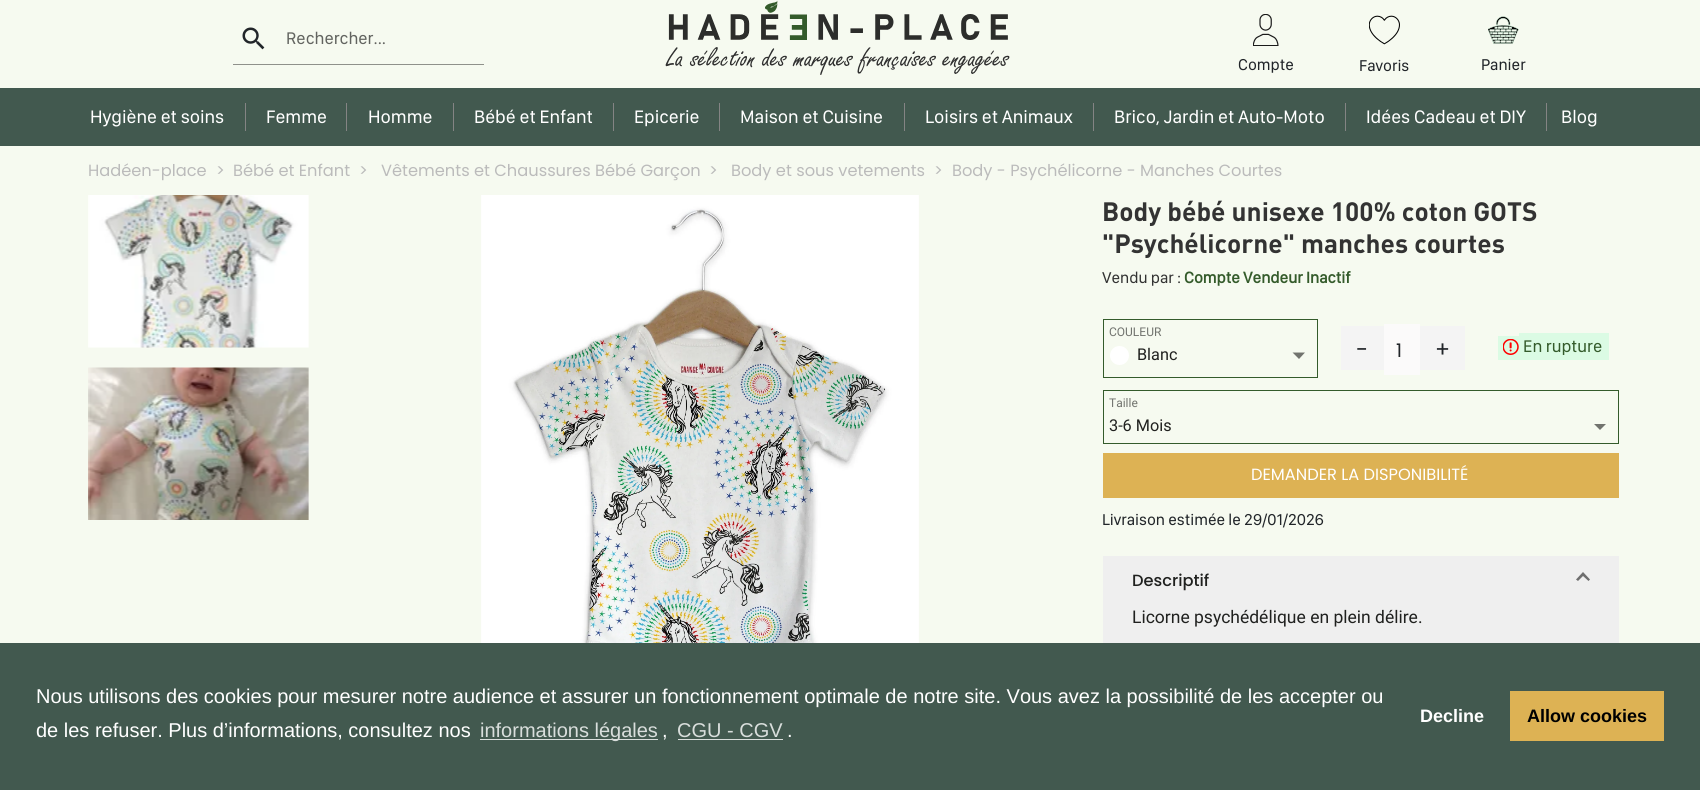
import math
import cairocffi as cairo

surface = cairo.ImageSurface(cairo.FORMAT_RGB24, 1700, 790)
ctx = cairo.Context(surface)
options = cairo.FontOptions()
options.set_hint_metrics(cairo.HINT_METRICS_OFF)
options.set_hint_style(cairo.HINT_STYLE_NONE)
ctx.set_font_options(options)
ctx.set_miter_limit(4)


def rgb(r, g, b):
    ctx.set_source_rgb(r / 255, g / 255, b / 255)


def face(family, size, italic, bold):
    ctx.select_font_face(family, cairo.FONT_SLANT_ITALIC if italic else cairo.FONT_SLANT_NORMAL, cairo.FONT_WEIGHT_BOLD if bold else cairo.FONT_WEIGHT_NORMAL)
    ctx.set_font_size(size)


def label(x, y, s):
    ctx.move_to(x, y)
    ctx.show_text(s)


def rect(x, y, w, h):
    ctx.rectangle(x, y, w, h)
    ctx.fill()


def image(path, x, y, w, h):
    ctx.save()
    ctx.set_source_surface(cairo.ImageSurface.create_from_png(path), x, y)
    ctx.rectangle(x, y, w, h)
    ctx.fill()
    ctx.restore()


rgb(246, 250, 240)
ctx.paint()
image('image0.png', 242, 27, 23, 23)
face('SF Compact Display', 17.5, 0, 0)
rgb(98, 100, 96)
label(286, 44, 'Rechercher...')
rgb(143, 145, 139)
rect(233, 64, 251, 1)
image('image1.png', 665, 0, 345, 75)
image('image2.png', 1253, 14, 26, 32)
face('SF Compact Display', 16.25, 0, 0)
rgb(33, 37, 41)
label(1238, 70, 'Compte')
image('image3.png', 1369, 15, 31, 30)
label(1359, 71, 'Favoris')
image('image4.png', 1488, 16, 31, 28)
label(1481, 70, 'Panier')
rgb(66, 89, 79)
rect(0, 88, 1700, 58)
face('SF Compact Display', 18.75, 0, 0)
rgb(255, 255, 255)
label(90, 123, 'Hygiène et soins')
rgb(132, 132, 132)
rect(245, 103, 1, 28)
rgb(255, 255, 255)
label(266, 123, 'Femme')
rgb(132, 132, 132)
rect(346, 103, 1, 28)
rgb(255, 255, 255)
label(368, 123, 'Homme')
rgb(132, 132, 132)
rect(453, 103, 1, 28)
rgb(255, 255, 255)
label(474, 123, 'Bébé et Enfant')
rgb(132, 132, 132)
rect(613, 103, 1, 28)
rgb(255, 255, 255)
label(634, 123, 'Epicerie')
rgb(132, 132, 132)
rect(719, 103, 1, 28)
rgb(255, 255, 255)
label(740, 123, 'Maison et Cuisine')
rgb(132, 132, 132)
rect(904, 103, 1, 28)
rgb(255, 255, 255)
label(925, 123, 'Loisirs et Animaux')
rgb(132, 132, 132)
rect(1093, 103, 1, 28)
rgb(255, 255, 255)
label(1114, 123, 'Brico, Jardin et Auto-Moto')
rgb(132, 132, 132)
rect(1345, 103, 1, 28)
rgb(255, 255, 255)
label(1366, 123, 'Idées Cadeau et DIY')
rgb(132, 132, 132)
rect(1546, 103, 1, 28)
rgb(255, 255, 255)
label(1561, 123, 'Blog')
face('Poppins', 16.25, 0, 0)
rgb(187, 187, 187)
label(88, 176, 'Hadéen-place')
label(216, 176, '>')
label(233, 176, 'Bébé et Enfant')
label(359, 176, '>')
label(381, 176, 'Vêtements et Chaussures Bébé Garçon')
label(709, 176, '>')
label(731, 176, 'Body et sous vetements')
label(934, 176, '>')
label(952, 176, 'Body - Psychélicorne - Manches Courtes')
image('image5.png', 88, 195, 221, 153)
image('image6.png', 88, 367, 221, 153)
image('image7.png', 481, 195, 438, 448)
face('DIN', 26.25, 0, 1)
rgb(51, 51, 51)
label(1102, 221, 'Body bébé unisexe 100% coton GOTS')
label(1102, 253, '"Psychélicorne" manches courtes')
face('SF Compact Display', 16.25, 0, 0)
label(1102, 283, 'Vendu par :')
face('SF Compact Display', 16.25, 0, 1)
rgb(52, 91, 43)
label(1184, 283, 'Compte Vendeur Inactif')
ctx.rectangle(1103.5, 319.5, 214, 58)
ctx.set_line_width(1)
ctx.stroke()
face('Roboto', 12, 0, 0)
rgb(113, 115, 110)
label(1109, 336, 'COULEUR')
rgb(255, 255, 255)
ctx.new_path()
ctx.arc(1119.5, 355.5, 9.5, 0, 2 * math.pi)
ctx.fill()
face('Roboto', 16.25, 0, 0)
rgb(32, 33, 31)
label(1137, 360, 'Blanc')
rgb(113, 115, 110)
ctx.new_path()
ctx.move_to(1292.5, 352.5)
ctx.line_to(1305, 352.5)
ctx.line_to(1299, 359)
ctx.close_path()
ctx.fill()
rgb(244, 244, 244)
rect(1341, 326, 43, 44)
face('Poppins', 22, 0, 0)
rgb(33, 37, 41)
label(1356, 357, '-')
rgb(251, 250, 250)
rect(1384, 324, 36, 51)
face('Poppins', 18.75, 0, 0)
rgb(33, 37, 41)
label(1396, 357, '1')
rgb(244, 244, 244)
rect(1420, 326, 45, 44)
face('Poppins', 22, 0, 0)
rgb(33, 37, 41)
label(1435, 357, '+')
rgb(219, 251, 228)
rect(1498, 336, 21, 24)
image('image8.png', 1503, 339, 16, 16)
rect(1519, 333, 90, 27)
face('SF Compact Display', 17.5, 0, 0)
rgb(52, 91, 43)
label(1523, 352, 'En rupture')
ctx.rectangle(1103.5, 390.5, 515, 53)
ctx.stroke()
face('Roboto', 12, 0, 0)
rgb(113, 115, 110)
label(1109, 407, 'Taille')
face('Roboto', 16.25, 0, 0)
rgb(32, 33, 31)
label(1109, 431, '3-6 Mois')
rgb(113, 115, 110)
ctx.new_path()
ctx.move_to(1594, 424)
ctx.line_to(1606, 424)
ctx.line_to(1600, 430)
ctx.close_path()
ctx.fill()
rgb(221, 178, 84)
rect(1103, 453, 516, 45)
face('Poppins', 16.25, 0, 0)
rgb(255, 255, 255)
label(1251, 480, 'DEMANDER LA DISPONIBILITÉ')
face('SF Compact Display', 16.25, 0, 0)
rgb(33, 37, 41)
label(1102, 525, 'Livraison estimée le 29/01/2026')
rgb(239, 239, 239)
rect(1103, 556, 516, 87)
face('Poppins Medium', 16.25, 0, 0)
rgb(32, 33, 31)
label(1132, 586, 'Descriptif')
rgb(110, 110, 110)
ctx.new_path()
ctx.move_to(1576, 579.5)
ctx.line_to(1583, 572)
ctx.line_to(1583, 576)
ctx.line_to(1578, 581)
ctx.close_path()
ctx.move_to(1583, 572)
ctx.line_to(1590, 579.5)
ctx.line_to(1588.5, 581)
ctx.line_to(1583, 576)
ctx.close_path()
ctx.fill()
face('Roboto', 17.5, 0, 0)
rgb(32, 33, 31)
label(1132, 623, 'Licorne psychédélique en plein délire.')
rgb(66, 89, 79)
rect(0, 643, 1700, 147)
face('Liberation Sans', 20, 0, 0)
rgb(255, 255, 255)
label(36, 703, 'Nous utilisons des cookies pour mesurer notre audience et assurer un fonctionnement optimale de notre site. Vous avez la possibilité de les accepter ou')
label(36, 737, 'de les refuser. Plus d’informations, consultez nos')
rgb(217, 222, 220)
rect(480, 739, 178, 1)
label(480, 737, 'informations légales')
rgb(255, 255, 255)
label(662, 737, ',')
rgb(217, 222, 220)
label(677, 737, 'CGU - CGV')
rect(678, 739, 105, 1)
rgb(255, 255, 255)
label(787, 737, '.')
face('Liberation Sans', 18, 0, 1)
label(1420, 722, 'Decline')
rgb(221, 178, 84)
rect(1510, 691, 154, 50)
rgb(0, 0, 0)
label(1527, 722, 'Allow cookies')
surface.write_to_png('render.png')
